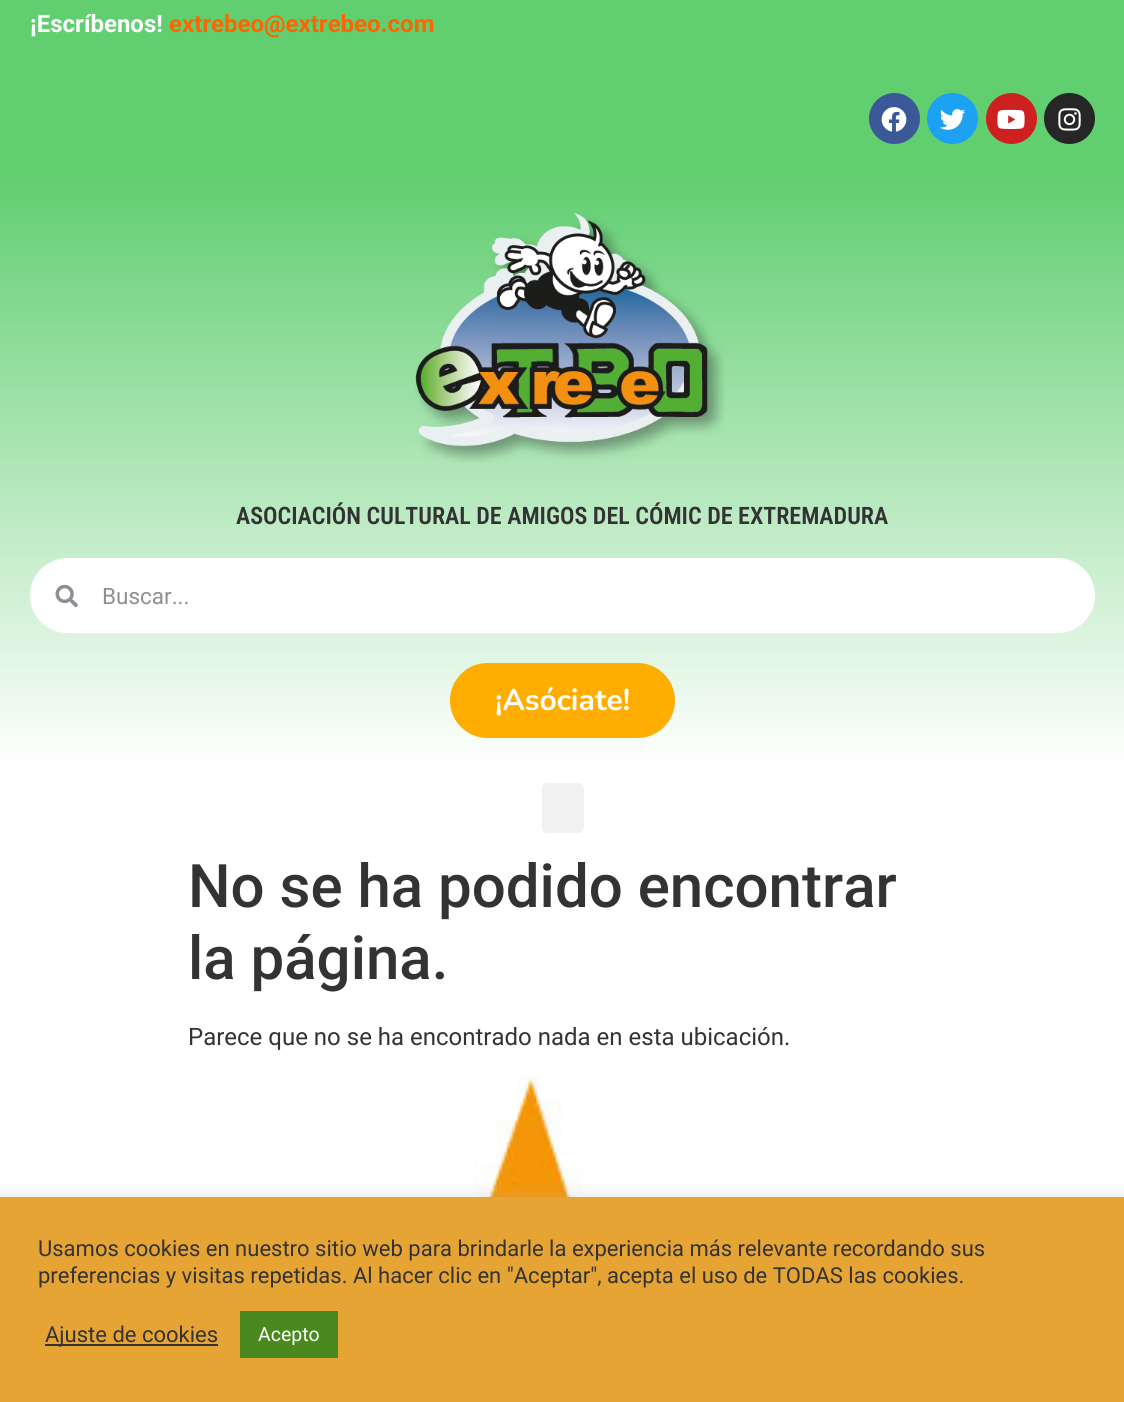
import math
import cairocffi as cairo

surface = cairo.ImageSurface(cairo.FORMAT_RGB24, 1124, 1402)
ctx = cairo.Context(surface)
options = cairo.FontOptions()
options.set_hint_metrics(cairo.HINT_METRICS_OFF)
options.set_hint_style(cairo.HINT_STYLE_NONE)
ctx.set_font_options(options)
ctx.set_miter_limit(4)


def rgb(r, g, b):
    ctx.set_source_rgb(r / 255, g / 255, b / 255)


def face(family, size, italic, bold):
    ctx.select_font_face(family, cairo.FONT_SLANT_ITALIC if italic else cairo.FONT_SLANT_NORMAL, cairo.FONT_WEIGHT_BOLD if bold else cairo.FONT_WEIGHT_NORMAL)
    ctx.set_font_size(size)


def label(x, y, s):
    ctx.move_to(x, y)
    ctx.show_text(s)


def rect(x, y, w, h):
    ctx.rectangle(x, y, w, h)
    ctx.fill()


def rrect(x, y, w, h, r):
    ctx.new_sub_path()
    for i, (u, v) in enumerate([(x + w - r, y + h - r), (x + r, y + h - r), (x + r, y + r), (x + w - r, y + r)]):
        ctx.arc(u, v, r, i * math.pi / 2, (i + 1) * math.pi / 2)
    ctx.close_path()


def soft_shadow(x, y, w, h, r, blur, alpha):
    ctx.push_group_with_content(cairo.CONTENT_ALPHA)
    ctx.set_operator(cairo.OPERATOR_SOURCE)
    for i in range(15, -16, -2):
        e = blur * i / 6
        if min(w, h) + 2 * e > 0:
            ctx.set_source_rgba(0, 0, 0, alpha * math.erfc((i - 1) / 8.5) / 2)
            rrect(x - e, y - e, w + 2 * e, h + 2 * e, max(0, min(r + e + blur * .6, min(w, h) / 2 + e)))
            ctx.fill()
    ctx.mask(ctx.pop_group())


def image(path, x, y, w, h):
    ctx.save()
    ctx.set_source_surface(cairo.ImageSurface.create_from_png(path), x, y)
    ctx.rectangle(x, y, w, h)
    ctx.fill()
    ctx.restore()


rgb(255, 255, 255)
ctx.paint()
rgb(97, 206, 112)
rect(0, 0, 1124, 174)
face('Roboto', 24, 0, 1)
rgb(255, 255, 255)
label(30, 32, '¡Escríbenos!')
rgb(255, 100, 0)
label(169, 32, 'extrebeo@extrebeo.com')
rgb(59, 89, 152)
ctx.new_path()
ctx.arc(894.5, 118.5, 25.5, 0, 2 * math.pi)
ctx.fill()
image('image0.png', 881, 107, 26, 25)
rgb(29, 161, 242)
ctx.arc(952.5, 118.5, 25.5, 0, 2 * math.pi)
ctx.fill()
image('image1.png', 940, 109, 26, 21)
rgb(205, 32, 31)
ctx.arc(1011.5, 118.5, 25.5, 0, 2 * math.pi)
ctx.fill()
image('image2.png', 997, 109, 28, 20)
rgb(38, 38, 38)
ctx.arc(1069.5, 118.5, 25.5, 0, 2 * math.pi)
ctx.fill()
image('image3.png', 1058, 108, 23, 23)
gradient = cairo.LinearGradient(563, 174, 563, 768)
gradient.add_color_stop_rgba(0, 0.38, 0.808, 0.439, 1)
gradient.add_color_stop_rgba(1, 1, 1, 1, 1)
ctx.set_source(gradient)
rect(0, 174, 1124, 585)
image('image4.png', 415, 213, 310, 250)
face('Roboto Condensed SemiBold', 24, 0, 0)
rgb(51, 51, 51)
label(236, 524, 'ASOCIACIÓN CULTURAL DE AMIGOS DEL CÓMIC DE EXTREMADURA')
rgb(255, 255, 255)
rrect(30, 558, 1065, 75, 37.5)
ctx.fill()
image('image5.png', 55, 584, 23, 24)
face('Roboto', 22.5, 0, 0)
rgb(140, 143, 147)
label(102, 604, 'Buscar...')
rgb(255, 173, 0)
rrect(450, 663, 225, 75, 37.5)
ctx.fill()
face('Nunito', 30, 0, 1)
rgb(255, 255, 255)
label(495, 710, '¡Asóciate!')
rgb(242, 242, 242)
rrect(542, 783, 42, 50, 5)
ctx.fill()
face('Roboto Medium', 60, 0, 0)
rgb(51, 51, 51)
label(188, 907, 'No se ha podido encontrar')
label(188, 979, 'la página.')
face('Roboto', 24, 0, 0)
label(188, 1045, 'Parece que no se ha encontrado nada en esta ubicación.')
image('image6.png', 0, 1077, 1124, 120)
rgb(172, 171, 171)
soft_shadow(0, 1196, 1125, 205, 0, 7.5, 0.3)
rgb(229, 164, 52)
rect(0, 1197, 1124, 205)
face('Roboto', 22, 0, 0)
rgb(51, 51, 51)
label(38, 1256, 'Usamos cookies en nuestro sitio web para brindarle la experiencia más relevante recordando sus')
label(38, 1283, 'preferencias y visitas repetidas. Al hacer clic en "Aceptar", acepta el uso de TODAS las cookies.')
rect(45, 1344, 173, 2)
label(45, 1342, 'Ajuste de cookies')
rgb(74, 137, 31)
rect(240, 1311, 98, 47)
face('Roboto', 19.5, 0, 0)
rgb(255, 255, 255)
label(258, 1341, 'Acepto')
surface.write_to_png('render.png')
